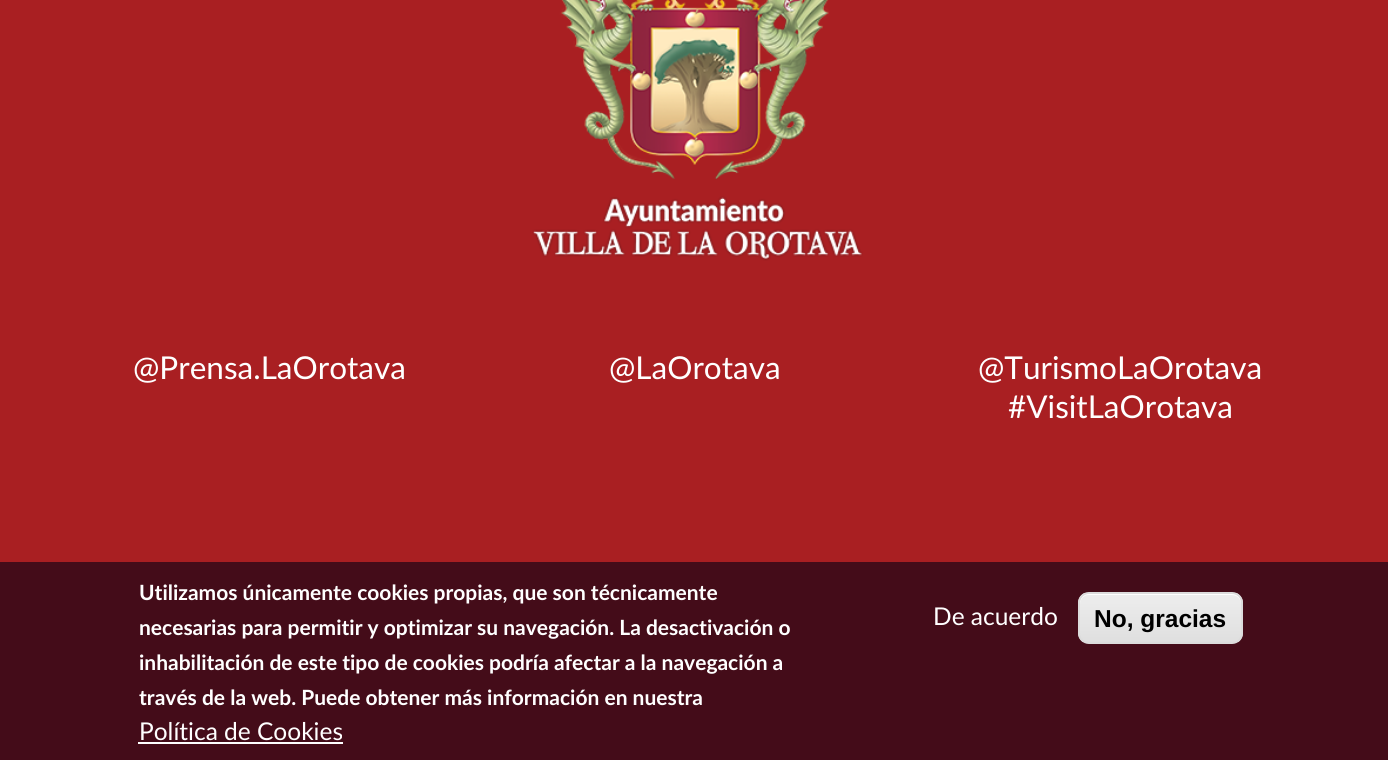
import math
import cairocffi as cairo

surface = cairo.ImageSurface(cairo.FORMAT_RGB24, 1388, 760)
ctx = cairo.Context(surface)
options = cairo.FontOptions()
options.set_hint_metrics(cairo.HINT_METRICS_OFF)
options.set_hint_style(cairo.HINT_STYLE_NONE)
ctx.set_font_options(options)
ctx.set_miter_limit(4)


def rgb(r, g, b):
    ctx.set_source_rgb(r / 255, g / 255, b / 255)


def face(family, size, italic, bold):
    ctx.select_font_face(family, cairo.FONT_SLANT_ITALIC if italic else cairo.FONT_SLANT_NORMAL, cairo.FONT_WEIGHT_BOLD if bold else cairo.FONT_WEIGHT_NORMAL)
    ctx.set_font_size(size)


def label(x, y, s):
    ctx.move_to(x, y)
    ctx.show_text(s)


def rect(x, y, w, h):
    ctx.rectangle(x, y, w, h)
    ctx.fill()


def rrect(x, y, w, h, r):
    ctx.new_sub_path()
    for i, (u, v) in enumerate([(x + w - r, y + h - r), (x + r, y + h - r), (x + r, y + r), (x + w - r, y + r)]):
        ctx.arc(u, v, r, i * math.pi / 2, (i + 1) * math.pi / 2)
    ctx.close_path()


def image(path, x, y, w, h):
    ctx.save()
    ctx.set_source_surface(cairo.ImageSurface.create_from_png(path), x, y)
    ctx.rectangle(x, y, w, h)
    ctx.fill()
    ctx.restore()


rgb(169, 31, 34)
ctx.paint()
image('image0.png', 532, 0, 331, 261)
face('Lato', 31.5, 0, 0)
rgb(255, 255, 255)
label(133, 379, '@Prensa.LaOrotava')
label(609, 379, '@LaOrotava')
label(978, 379, '@TurismoLaOrotava')
label(1008, 418, '#VisitLaOrotava')
rgb(68, 12, 25)
rect(0, 562, 1388, 198)
face('Lato', 21, 0, 1)
rgb(255, 255, 255)
label(139, 600, 'Utilizamos únicamente cookies propias, que son técnicamente')
label(139, 635, 'necesarias para permitir y optimizar su navegación. La desactivación o')
label(139, 670, 'inhabilitación de este tipo de cookies podría afectar a la navegación a')
label(139, 705, 'través de la web. Puede obtener más información en nuestra')
face('Lato', 24.5, 0, 0)
label(139, 740, 'Política de Cookies')
rect(138, 742, 205, 2)
label(933, 625, 'De acuerdo')
ctx.save()
rrect(1078, 592, 165, 52, 11)
ctx.clip()
gradient = cairo.LinearGradient(1160, 593, 1160, 642)
gradient.add_color_stop_rgba(0.05, 0.929, 0.929, 0.929, 1)
gradient.add_color_stop_rgba(1, 0.875, 0.875, 0.875, 1)
ctx.set_source(gradient)
rect(1078, 593, 165, 49)
ctx.restore()
ctx.new_path()
ctx.move_to(1088, 595)
ctx.line_to(1232, 595)
ctx.curve_to(1237, 595, 1241, 599, 1241, 604)
ctx.line_to(1241, 602)
ctx.curve_to(1241, 597, 1237, 593, 1232, 593)
ctx.line_to(1089, 593)
ctx.curve_to(1084, 593, 1080, 597, 1080, 602)
ctx.line_to(1080, 604)
ctx.curve_to(1080, 599, 1084, 595, 1088, 595)
ctx.close_path()
ctx.fill()
rrect(1079, 593, 163, 50, 10)
rgb(220, 220, 220)
ctx.stroke()
face('Liberation Sans', 24.5, 0, 1)
rgb(0, 0, 0)
label(1094, 627, 'No, gracias')
surface.write_to_png('render.png')
